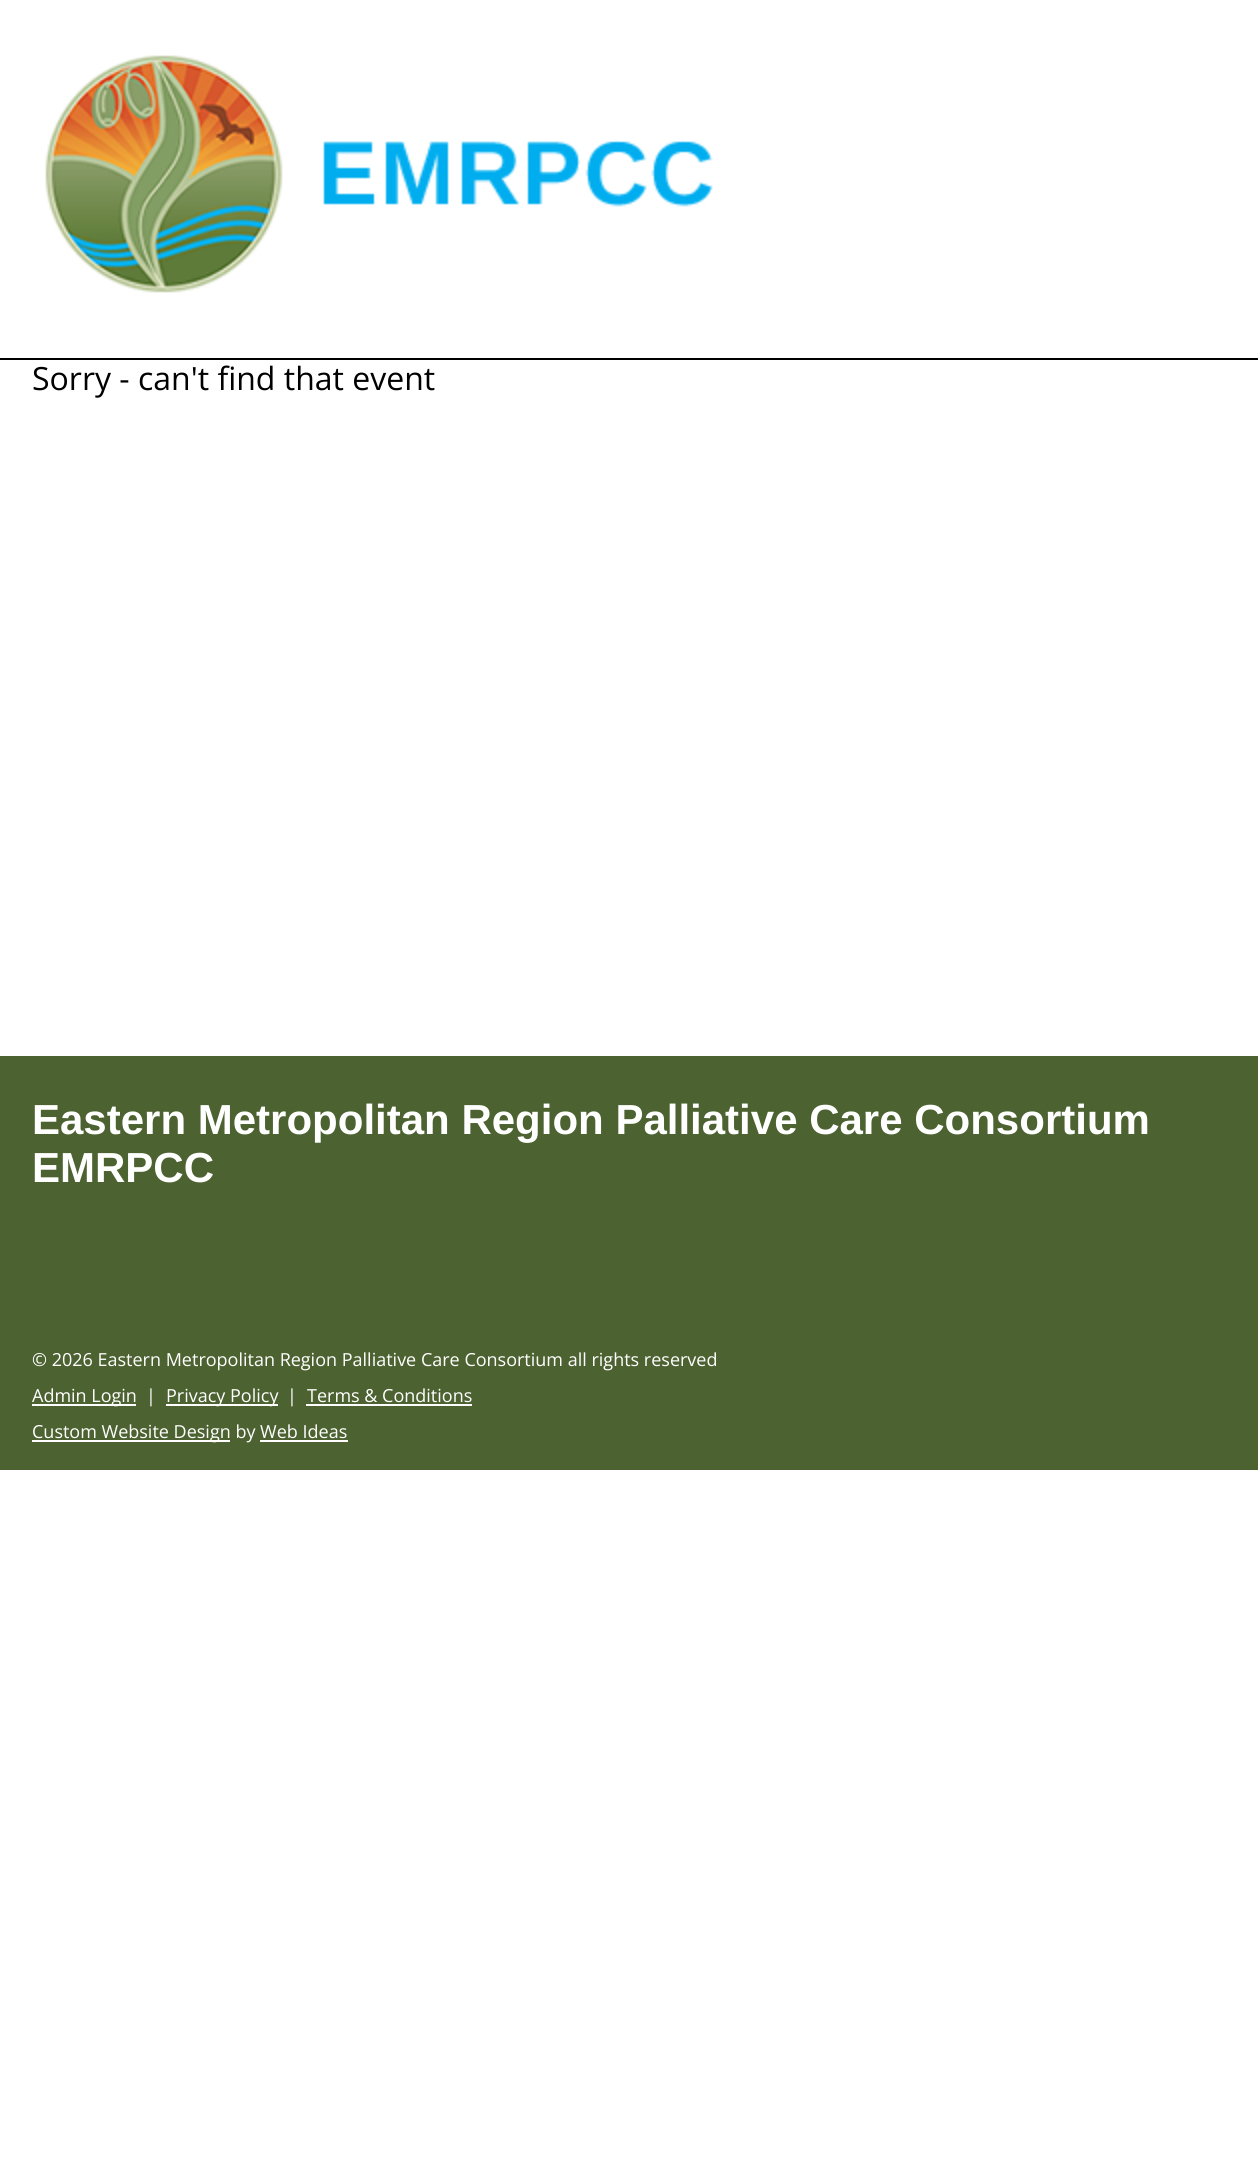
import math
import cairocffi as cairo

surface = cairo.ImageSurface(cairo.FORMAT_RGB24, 1258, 2163)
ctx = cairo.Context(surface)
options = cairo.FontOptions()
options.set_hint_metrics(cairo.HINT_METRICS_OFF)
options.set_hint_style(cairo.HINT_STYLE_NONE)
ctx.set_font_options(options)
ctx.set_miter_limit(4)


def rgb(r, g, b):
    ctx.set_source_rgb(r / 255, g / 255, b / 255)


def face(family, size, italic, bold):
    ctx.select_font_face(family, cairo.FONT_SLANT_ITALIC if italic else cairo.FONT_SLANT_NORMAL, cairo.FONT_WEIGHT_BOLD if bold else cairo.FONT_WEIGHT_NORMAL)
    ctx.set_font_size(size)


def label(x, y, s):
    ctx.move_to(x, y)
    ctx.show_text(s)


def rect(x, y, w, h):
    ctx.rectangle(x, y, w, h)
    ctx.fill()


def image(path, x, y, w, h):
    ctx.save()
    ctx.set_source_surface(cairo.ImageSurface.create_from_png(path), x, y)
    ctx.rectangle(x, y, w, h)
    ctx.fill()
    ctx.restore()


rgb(255, 255, 255)
ctx.paint()
rgb(0, 0, 0)
rect(0, 358, 1258, 2)
image('image0.png', 45, 55, 668, 238)
face('Open Sans', 32, 0, 0)
label(32, 390, 'Sorry - can\'t find that event')
rgb(77, 98, 49)
rect(0, 1056, 1258, 414)
face('Arimo', 42, 0, 1)
rgb(255, 255, 255)
label(32, 1134, 'Eastern Metropolitan Region Palliative Care Consortium')
label(32, 1182, 'EMRPCC')
face('Open Sans', 18, 0, 0)
label(32, 1366, '© 2026 Eastern Metropolitan Region Palliative Care Consortium all rights reserved')
rect(32, 1404, 104, 2)
label(32, 1402, 'Admin Login')
label(146, 1402, '|')
rect(166, 1404, 112, 2)
label(166, 1402, 'Privacy Policy')
label(287, 1402, '|')
label(307, 1402, 'Terms & Conditions')
rect(306, 1404, 166, 2)
rect(32, 1440, 198, 2)
label(32, 1438, 'Custom Website Design by Web Ideas')
rect(260, 1440, 88, 2)
surface.write_to_png('render.png')
